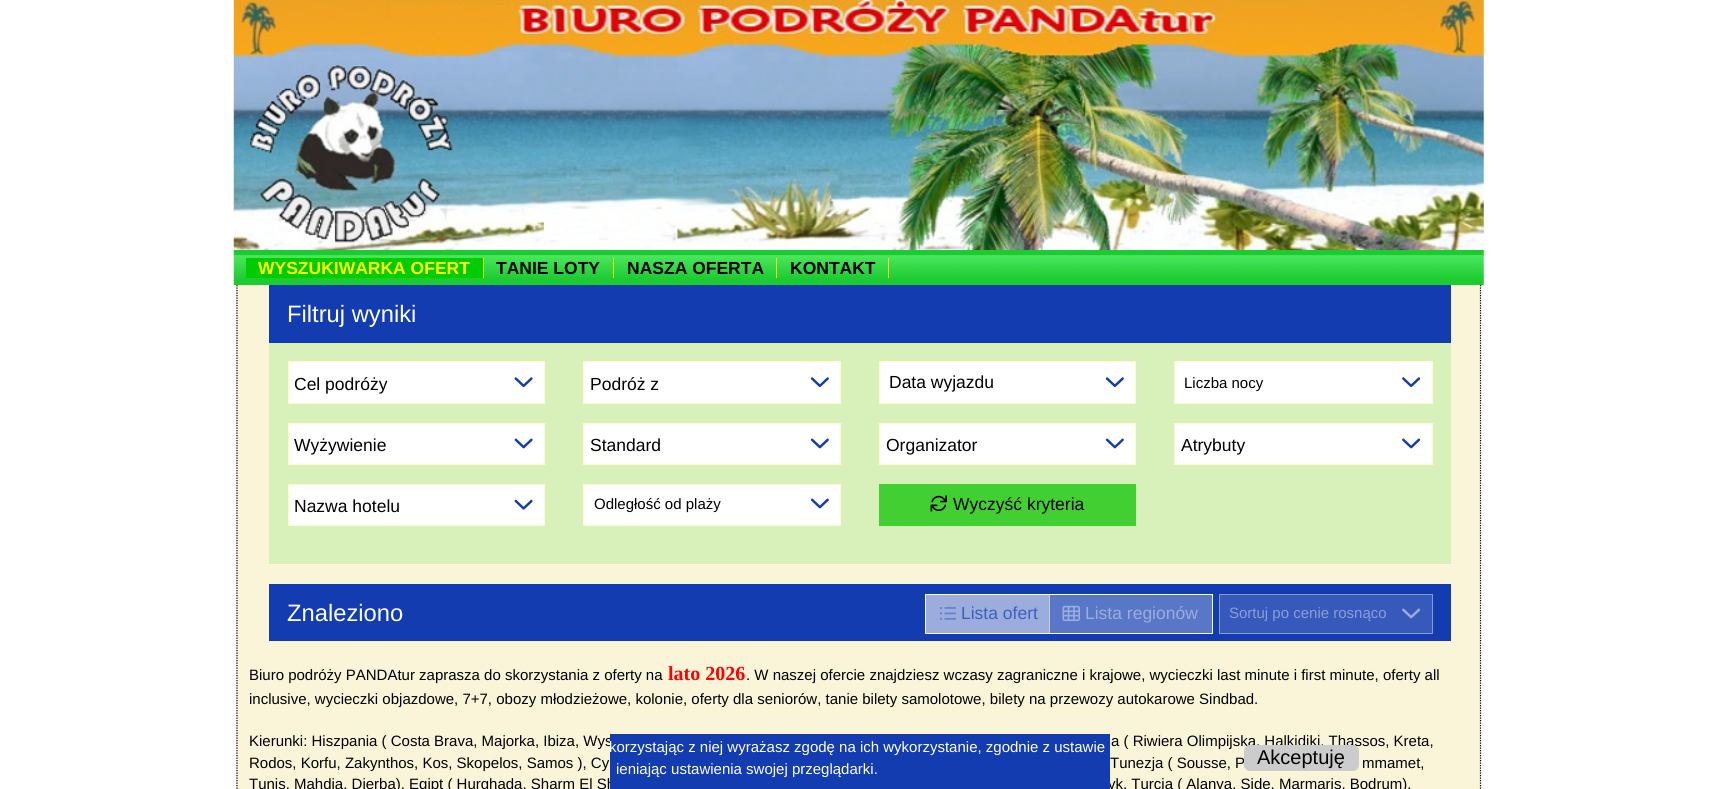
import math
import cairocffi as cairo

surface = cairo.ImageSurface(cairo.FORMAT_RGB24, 1716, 789)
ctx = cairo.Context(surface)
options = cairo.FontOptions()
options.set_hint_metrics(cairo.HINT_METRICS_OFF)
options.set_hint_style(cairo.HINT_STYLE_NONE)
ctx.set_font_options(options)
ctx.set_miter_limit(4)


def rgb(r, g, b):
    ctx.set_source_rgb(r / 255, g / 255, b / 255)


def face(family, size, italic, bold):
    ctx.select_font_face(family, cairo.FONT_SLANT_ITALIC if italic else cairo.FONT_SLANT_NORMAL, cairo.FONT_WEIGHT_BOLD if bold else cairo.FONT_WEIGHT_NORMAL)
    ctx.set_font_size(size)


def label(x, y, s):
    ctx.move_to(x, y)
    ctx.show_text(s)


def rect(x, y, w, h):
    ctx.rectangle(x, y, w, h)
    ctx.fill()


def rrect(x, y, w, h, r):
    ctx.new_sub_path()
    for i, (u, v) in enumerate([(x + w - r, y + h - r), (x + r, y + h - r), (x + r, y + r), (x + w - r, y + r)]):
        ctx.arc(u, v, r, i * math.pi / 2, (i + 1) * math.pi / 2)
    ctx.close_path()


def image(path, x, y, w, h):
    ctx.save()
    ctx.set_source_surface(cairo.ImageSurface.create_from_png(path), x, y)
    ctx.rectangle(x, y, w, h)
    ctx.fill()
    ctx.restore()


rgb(255, 255, 255)
ctx.paint()
image('image0.png', 233, 0, 1251, 250)
image('image1.png', 233, 250, 1251, 35)
rgb(0, 204, 0)
rect(246, 258, 237, 20)
face('Liberation Sans', 17.5, 0, 1)
rgb(255, 255, 0)
label(258, 274, 'WYSZUKIWARKA OFERT')
rect(483, 258, 1, 20)
rgb(0, 0, 0)
label(496, 274, 'TANIE LOTY')
rgb(255, 255, 0)
rect(613, 258, 1, 20)
rgb(0, 0, 0)
label(627, 274, 'NASZA OFERTA')
rgb(255, 255, 0)
rect(776, 258, 1, 20)
rgb(0, 0, 0)
label(790, 274, 'KONTAKT')
rgb(255, 255, 0)
rect(888, 258, 1, 20)
rgb(250, 244, 216)
rect(236, 285, 1245, 504)
ctx.new_path()
ctx.move_to(1480.5, 285)
ctx.line_to(1480.5, 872.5)
rgb(0, 0, 0)
ctx.set_line_width(1.2)
ctx.set_dash([1.25, 1.25])
ctx.stroke()
ctx.new_path()
ctx.move_to(237, 285)
ctx.line_to(237, 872.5)
ctx.stroke()
rgb(18, 60, 175)
rect(269, 285, 1182, 58)
face('Liberation Sans', 23.75, 0, 0)
rgb(255, 255, 255)
label(287, 322, 'Filtruj wyniki')
rgb(252, 253, 200)
rect(269, 564, 1182, 1)
rgb(216, 241, 186)
rect(269, 343, 1182, 221)
rgb(255, 255, 255)
ctx.rectangle(288.5, 361.5, 256, 42)
ctx.fill_preserve()
rgb(252, 253, 200)
ctx.set_line_width(1)
ctx.set_dash([])
ctx.stroke()
face('Liberation Sans', 17.5, 0, 0)
rgb(0, 0, 0)
label(294, 390, 'Cel podróży')
image('image2.png', 514, 377, 19, 11)
rgb(255, 255, 255)
ctx.rectangle(583.5, 361.5, 257, 42)
ctx.fill_preserve()
rgb(252, 253, 200)
ctx.stroke()
rgb(0, 0, 0)
label(590, 390, 'Podróż z')
image('image3.png', 810, 377, 19, 11)
rgb(255, 255, 255)
ctx.rectangle(879.5, 361.5, 256, 42)
ctx.fill_preserve()
rgb(252, 253, 200)
ctx.stroke()
rgb(0, 0, 0)
label(889, 388, 'Data wyjazdu')
image('image3.png', 1105, 377, 19, 11)
rgb(255, 255, 255)
ctx.rectangle(1174.5, 361.5, 258, 42)
ctx.fill_preserve()
rgb(252, 253, 200)
ctx.stroke()
face('Liberation Sans', 15, 0, 0)
rgb(0, 0, 0)
label(1184, 388, 'Liczba nocy')
image('image4.png', 1402, 377, 19, 11)
rgb(255, 255, 255)
ctx.rectangle(288.5, 423.5, 256, 41)
ctx.fill_preserve()
rgb(252, 253, 200)
ctx.stroke()
face('Liberation Sans', 17.5, 0, 0)
rgb(0, 0, 0)
label(294, 451, 'Wyżywienie')
image('image5.png', 514, 438, 19, 11)
rgb(255, 255, 255)
ctx.rectangle(583.5, 423.5, 257, 41)
ctx.fill_preserve()
rgb(252, 253, 200)
ctx.stroke()
rgb(0, 0, 0)
label(590, 451, 'Standard')
image('image6.png', 810, 438, 19, 11)
rgb(255, 255, 255)
ctx.rectangle(879.5, 423.5, 256, 41)
ctx.fill_preserve()
rgb(252, 253, 200)
ctx.stroke()
rgb(0, 0, 0)
label(886, 451, 'Organizator')
image('image6.png', 1105, 438, 19, 11)
rgb(255, 255, 255)
ctx.rectangle(1174.5, 423.5, 258, 41)
ctx.fill_preserve()
rgb(252, 253, 200)
ctx.stroke()
rgb(0, 0, 0)
label(1181, 451, 'Atrybuty')
image('image7.png', 1402, 438, 19, 11)
rgb(255, 255, 255)
ctx.rectangle(288.5, 484.5, 256, 41)
ctx.fill_preserve()
rgb(252, 253, 200)
ctx.stroke()
rgb(0, 0, 0)
label(294, 512, 'Nazwa hotelu')
image('image8.png', 514, 499, 19, 11)
rgb(255, 255, 255)
ctx.rectangle(583.5, 484.5, 257, 41)
ctx.fill_preserve()
rgb(252, 253, 200)
ctx.stroke()
face('Liberation Sans', 15, 0, 0)
rgb(0, 0, 0)
label(594, 509, 'Odległość od plaży')
image('image6.png', 810, 498, 19, 11)
rgb(66, 207, 49)
rect(879, 484, 257, 42)
image('image9.png', 930, 495, 17, 17)
face('Liberation Sans', 17.5, 0, 0)
rgb(0, 0, 0)
label(953, 510, 'Wyczyść kryteria')
rgb(18, 60, 175)
rect(269, 584, 1182, 57)
face('Liberation Sans', 23.75, 0, 0)
rgb(255, 255, 255)
label(287, 621, 'Znaleziono')
rgb(89, 119, 199)
rect(1050, 595, 162, 38)
rgb(155, 173, 221)
rect(926, 595, 123, 38)
ctx.rectangle(925.5, 594.5, 287, 39)
rgb(252, 253, 200)
ctx.stroke()
image('image10.png', 939, 607, 18, 13)
face('Liberation Sans', 17.5, 0, 0)
rgb(61, 95, 189)
label(961, 619, 'Lista ofert')
rgb(194, 206, 221)
rect(1049, 595, 1, 38)
image('image11.png', 1062, 605, 18, 17)
rgb(155, 173, 221)
label(1085, 619, 'Lista regionów')
rgb(54, 89, 187)
ctx.rectangle(1219.5, 594.5, 213, 39)
ctx.fill_preserve()
rgb(135, 157, 188)
ctx.stroke()
face('Liberation Sans', 15, 0, 0)
rgb(137, 158, 215)
label(1229, 618, 'Sortuj po cenie rosnąco')
image('image12.png', 1402, 608, 19, 11)
rgb(0, 0, 0)
label(249, 746, 'Kierunki: Hiszpania ( Costa Brava, Majorka, Ibiza, Wys')
label(249, 789, 'Tunis, Mahdia, Djerba), Egipt ( Hurghada, Sharm El Sh')
label(1108, 789, 'yk, Turcja ( Alanya, Side, Marmaris, Bodrum),')
rgb(18, 60, 175)
rect(610, 734, 500, 55)
rgb(0, 0, 0)
label(249, 680, 'Biuro podróży PANDAtur zaprasza do skorzystania z oferty na')
face('Liberation Serif', 20, 0, 1)
rgb(255, 0, 0)
label(668, 680, 'lato 2026')
face('Liberation Sans', 15, 0, 0)
rgb(0, 0, 0)
label(746, 680, '. W naszej ofercie znajdziesz wczasy zagraniczne i krajowe, wycieczki last minute i first minute, oferty all')
label(249, 704, 'inclusive, wycieczki objazdowe, 7+7, obozy młodzieżowe, kolonie, oferty dla seniorów, tanie bilety samolotowe, bilety na przewozy autokarowe Sindbad.')
label(1111, 746, 'a ( Riwiera Olimpijska, Halkidiki, Thassos, Kreta,')
label(249, 768, 'Rodos, Korfu, Zakynthos, Kos, Skopelos, Samos ), Cy')
label(1110, 768, 'Tunezja ( Sousse, P')
label(1362, 768, 'mmamet,')
rgb(255, 255, 255)
label(609, 752, 'korzystając z niej wyrażasz zgodę na ich wykorzystanie, zgodnie z ustawie')
label(616, 774, 'ieniając ustawienia swojej przeglądarki.')
rgb(204, 204, 204)
rrect(1244, 745, 115, 26, 6)
ctx.fill()
face('Liberation Sans', 20, 0, 0)
rgb(0, 0, 0)
label(1257, 764, 'Akceptuję')
surface.write_to_png('render.png')
